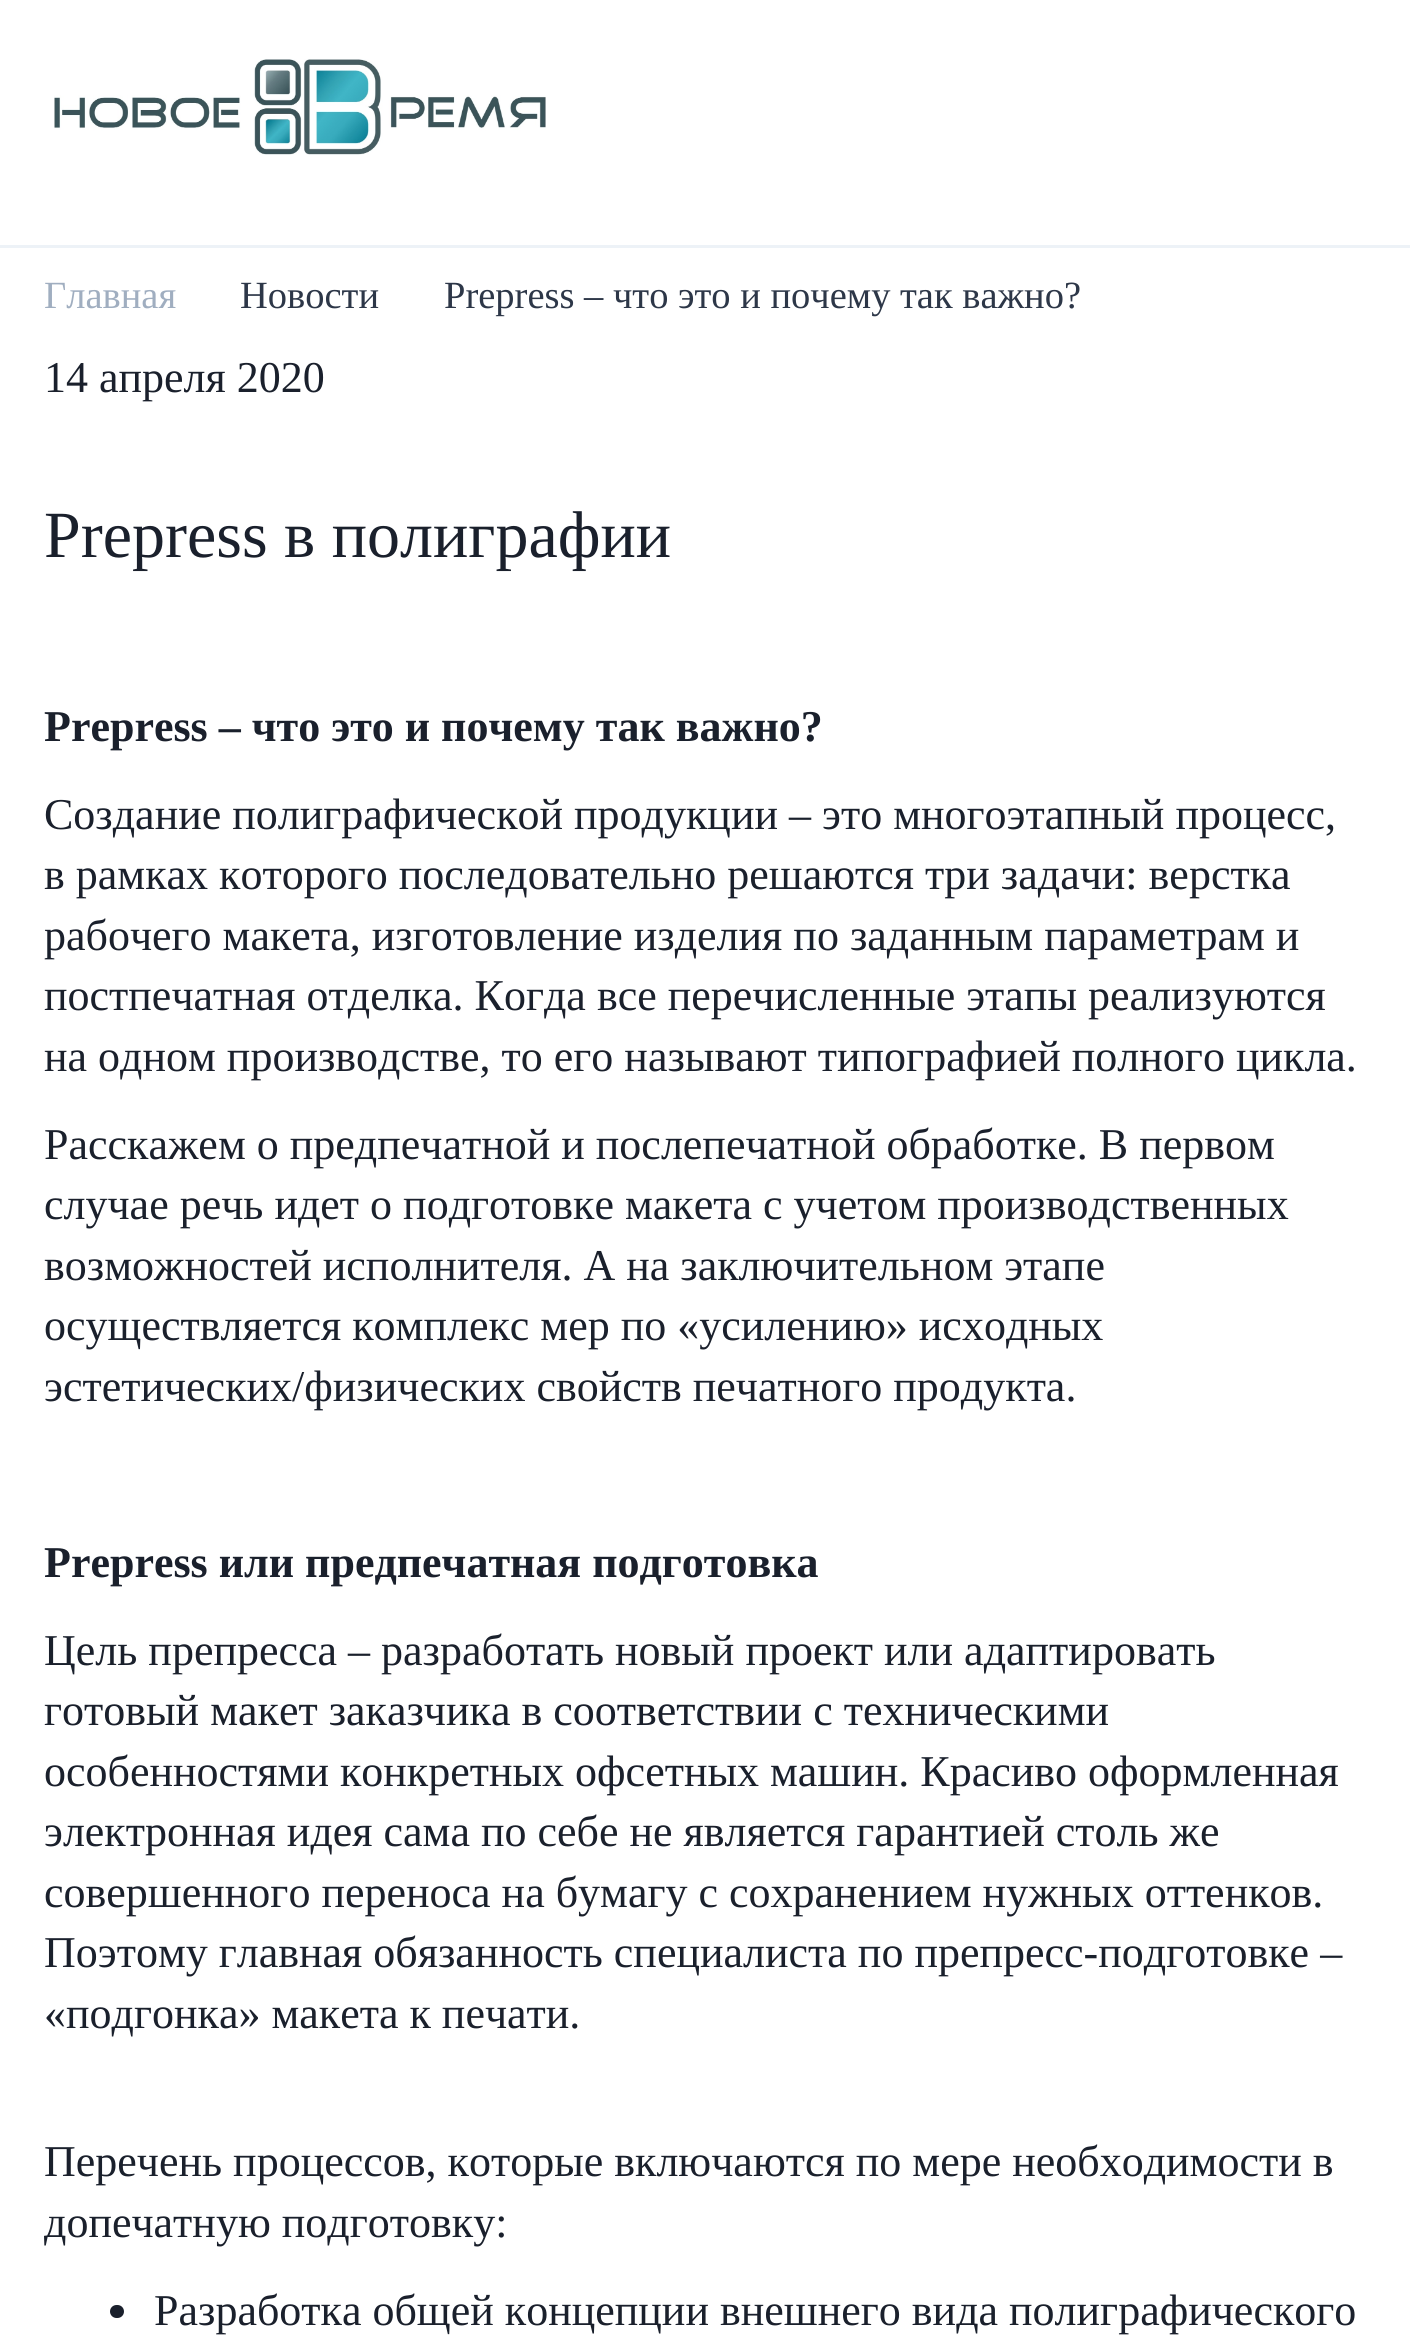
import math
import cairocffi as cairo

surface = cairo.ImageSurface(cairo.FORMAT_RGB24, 1410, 2351)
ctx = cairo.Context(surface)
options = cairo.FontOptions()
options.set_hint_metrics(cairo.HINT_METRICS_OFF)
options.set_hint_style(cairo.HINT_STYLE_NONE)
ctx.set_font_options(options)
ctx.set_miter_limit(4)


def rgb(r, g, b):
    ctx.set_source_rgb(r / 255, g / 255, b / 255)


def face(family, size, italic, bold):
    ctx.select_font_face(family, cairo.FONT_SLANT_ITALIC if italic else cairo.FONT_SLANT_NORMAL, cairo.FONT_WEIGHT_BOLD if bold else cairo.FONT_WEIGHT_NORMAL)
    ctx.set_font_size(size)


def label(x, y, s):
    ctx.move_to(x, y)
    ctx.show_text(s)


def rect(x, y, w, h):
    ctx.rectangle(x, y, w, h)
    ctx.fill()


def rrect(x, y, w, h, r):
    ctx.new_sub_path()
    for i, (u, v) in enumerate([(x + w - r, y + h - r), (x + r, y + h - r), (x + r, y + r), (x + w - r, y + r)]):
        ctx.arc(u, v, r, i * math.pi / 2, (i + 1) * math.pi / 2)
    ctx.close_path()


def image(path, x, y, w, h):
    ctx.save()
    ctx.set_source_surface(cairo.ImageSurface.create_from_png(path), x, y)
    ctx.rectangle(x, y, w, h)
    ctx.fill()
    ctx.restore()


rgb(255, 255, 255)
ctx.paint()
image('image0.png', 54, 59, 492, 96)
rgb(237, 242, 247)
rect(0, 245, 1410, 3)
face('Liberation Serif', 38.5, 0, 0)
rgb(160, 174, 192)
label(44, 308, 'Главная')
rgb(45, 55, 72)
label(240, 308, 'Новости')
label(444, 308, 'Prepress – что это и почему так важно?')
face('Liberation Serif', 44, 0, 0)
rgb(26, 32, 44)
label(44, 392, '14 апреля 2020')
face('Liberation Serif', 66, 0, 0)
label(44, 557, 'Prepress в полиграфии')
face('Liberation Serif', 44, 0, 1)
label(44, 741, 'Prepress – что это и почему так важно?')
face('Liberation Serif', 44, 0, 0)
label(44, 829, 'Создание полиграфической продукции – это многоэтапный процесс,')
label(44, 889, 'в рамках которого последовательно решаются три задачи: верстка')
label(44, 950, 'рабочего макета, изготовление изделия по заданным параметрам и')
label(44, 1010, 'постпечатная отделка. Когда все перечисленные этапы реализуются')
label(44, 1071, 'на одном производстве, то его называют типографией полного цикла.')
label(44, 1159, 'Расскажем о предпечатной и послепечатной обработке. В первом')
label(44, 1219, 'случае речь идет о подготовке макета с учетом производственных')
label(44, 1280, 'возможностей исполнителя. А на заключительном этапе')
label(44, 1340, 'осуществляется комплекс мер по «усилению» исходных')
label(44, 1401, 'эстетических/физических свойств печатного продукта.')
face('Liberation Serif', 44, 0, 1)
label(44, 1577, 'Prepress или предпечатная подготовка')
face('Liberation Serif', 44, 0, 0)
label(44, 1665, 'Цель препресса – разработать новый проект или адаптировать')
label(44, 1725, 'готовый макет заказчика в соответствии с техническими')
label(44, 1786, 'особенностями конкретных офсетных машин. Красиво оформленная')
label(44, 1846, 'электронная идея сама по себе не является гарантией столь же')
label(44, 1907, 'совершенного переноса на бумагу с сохранением нужных оттенков.')
label(44, 1967, 'Поэтому главная обязанность специалиста по препресс-подготовке –')
label(44, 2028, '«подгонка» макета к печати.')
label(44, 2176, 'Перечень процессов, которые включаются по мере необходимости в')
label(44, 2237, 'допечатную подготовку:')
rrect(110, 2305, 14, 13, 6.5)
ctx.fill()
label(154, 2325, 'Разработка общей концепции внешнего вида полиграфического')
surface.write_to_png('render.png')
